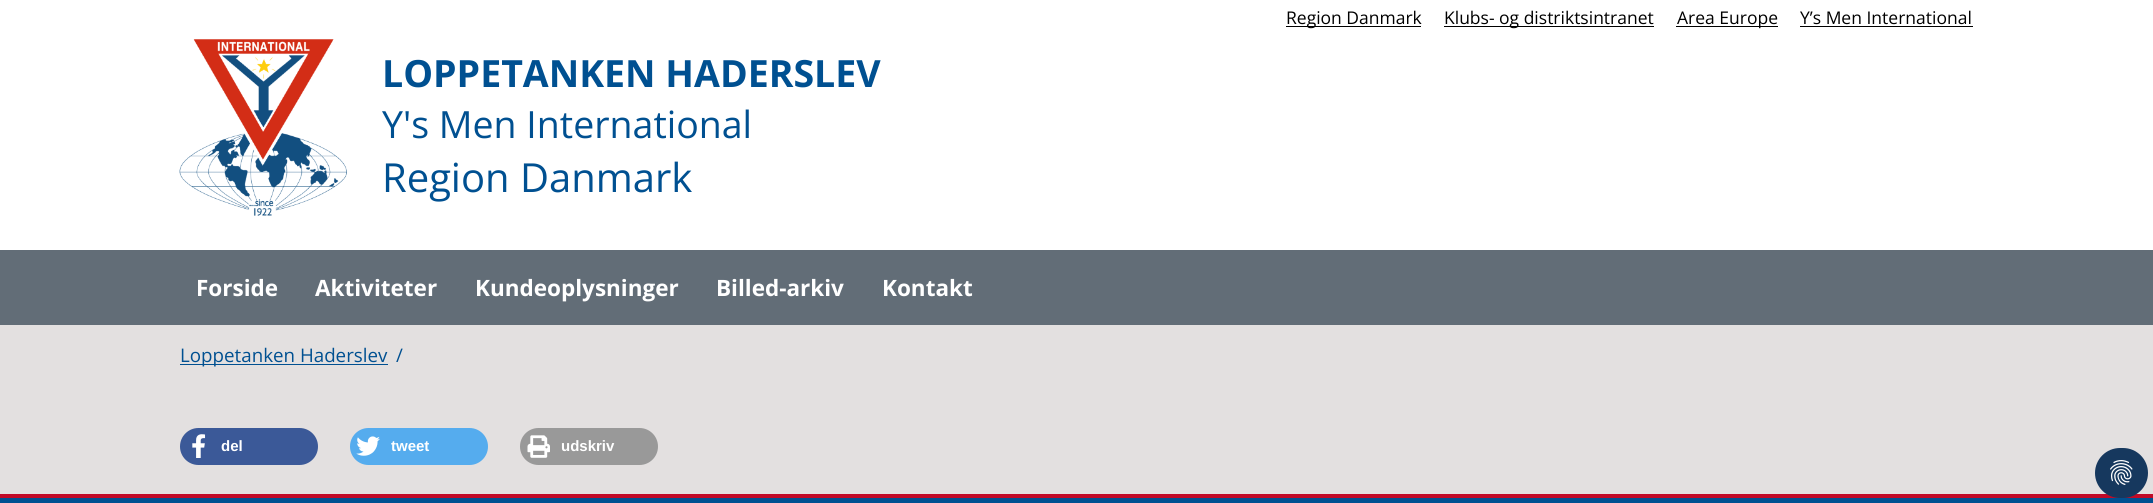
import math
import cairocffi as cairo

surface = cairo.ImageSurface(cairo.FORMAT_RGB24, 2153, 503)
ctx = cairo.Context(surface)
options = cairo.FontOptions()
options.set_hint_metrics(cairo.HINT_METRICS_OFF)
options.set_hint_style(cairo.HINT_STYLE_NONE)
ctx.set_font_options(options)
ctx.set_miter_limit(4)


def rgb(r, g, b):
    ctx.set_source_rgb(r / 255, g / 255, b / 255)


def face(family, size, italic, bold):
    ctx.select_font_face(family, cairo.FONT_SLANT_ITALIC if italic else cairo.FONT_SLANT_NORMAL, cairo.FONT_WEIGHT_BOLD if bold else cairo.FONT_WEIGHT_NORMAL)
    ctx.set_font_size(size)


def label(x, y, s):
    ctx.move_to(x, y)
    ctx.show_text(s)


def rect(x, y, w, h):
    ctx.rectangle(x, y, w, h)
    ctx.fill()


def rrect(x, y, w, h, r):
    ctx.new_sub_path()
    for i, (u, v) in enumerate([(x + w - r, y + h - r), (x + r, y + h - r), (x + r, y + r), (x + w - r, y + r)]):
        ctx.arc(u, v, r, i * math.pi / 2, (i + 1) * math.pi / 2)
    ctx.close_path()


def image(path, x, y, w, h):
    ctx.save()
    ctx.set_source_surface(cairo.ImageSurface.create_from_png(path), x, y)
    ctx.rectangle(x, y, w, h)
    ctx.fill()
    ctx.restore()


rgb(227, 224, 224)
ctx.paint()
rgb(255, 255, 255)
rect(0, 0, 2153, 250)
rgb(0, 0, 0)
rect(1286, 26, 135, 1)
face('Open Sans', 17.5, 0, 0)
label(1286, 24, 'Region Danmark')
rect(1444, 26, 210, 1)
label(1444, 24, 'Klubs- og distriktsintranet')
rect(1676, 26, 102, 1)
label(1677, 24, 'Area Europe')
label(1800, 24, 'Y’s Men International')
rect(1800, 26, 173, 1)
image('image0.png', 179, 39, 168, 177)
face('Open Sans', 37.5, 0, 1)
rgb(0, 80, 145)
label(382, 87, 'LOPPETANKEN HADERSLEV')
face('Open Sans', 37.5, 0, 0)
label(382, 138, 'Y\'s Men International')
face('Open Sans', 40, 0, 0)
label(382, 192, 'Region Danmark')
rgb(98, 109, 119)
rect(0, 250, 2153, 75)
face('Open Sans', 22.5, 0, 1)
rgb(255, 255, 255)
label(196, 296, 'Forside')
label(315, 296, 'Aktiviteter')
label(475, 296, 'Kundeoplysninger')
label(716, 296, 'Billed-arkiv')
label(882, 296, 'Kontakt')
rgb(0, 80, 145)
rect(180, 364, 208, 1)
face('Open Sans', 18.75, 0, 0)
label(180, 362, 'Loppetanken Haderslev')
label(396, 362, '/')
rgb(59, 89, 152)
rrect(180, 428, 138, 37, 18.5)
ctx.fill()
image('image1.png', 192, 434, 14, 24)
face('Liberation Sans', 15, 0, 1)
rgb(255, 255, 255)
label(221, 451, 'del')
rgb(85, 172, 238)
rrect(350, 428, 138, 37, 18.5)
ctx.fill()
image('image2.png', 356, 436, 24, 20)
rgb(255, 255, 255)
label(391, 451, 'tweet')
rgb(153, 153, 153)
rrect(520, 428, 138, 37, 18.5)
ctx.fill()
image('image3.png', 527, 435, 23, 23)
rgb(255, 255, 255)
label(561, 451, 'udskriv')
rgb(193, 10, 39)
rect(0, 494, 2153, 4)
rgb(22, 56, 94)
rrect(2095, 448, 53, 50, 25)
ctx.fill()
image('image4.png', 2110, 460, 23, 25)
rgb(0, 80, 145)
rect(0, 498, 2153, 5)
surface.write_to_png('render.png')
